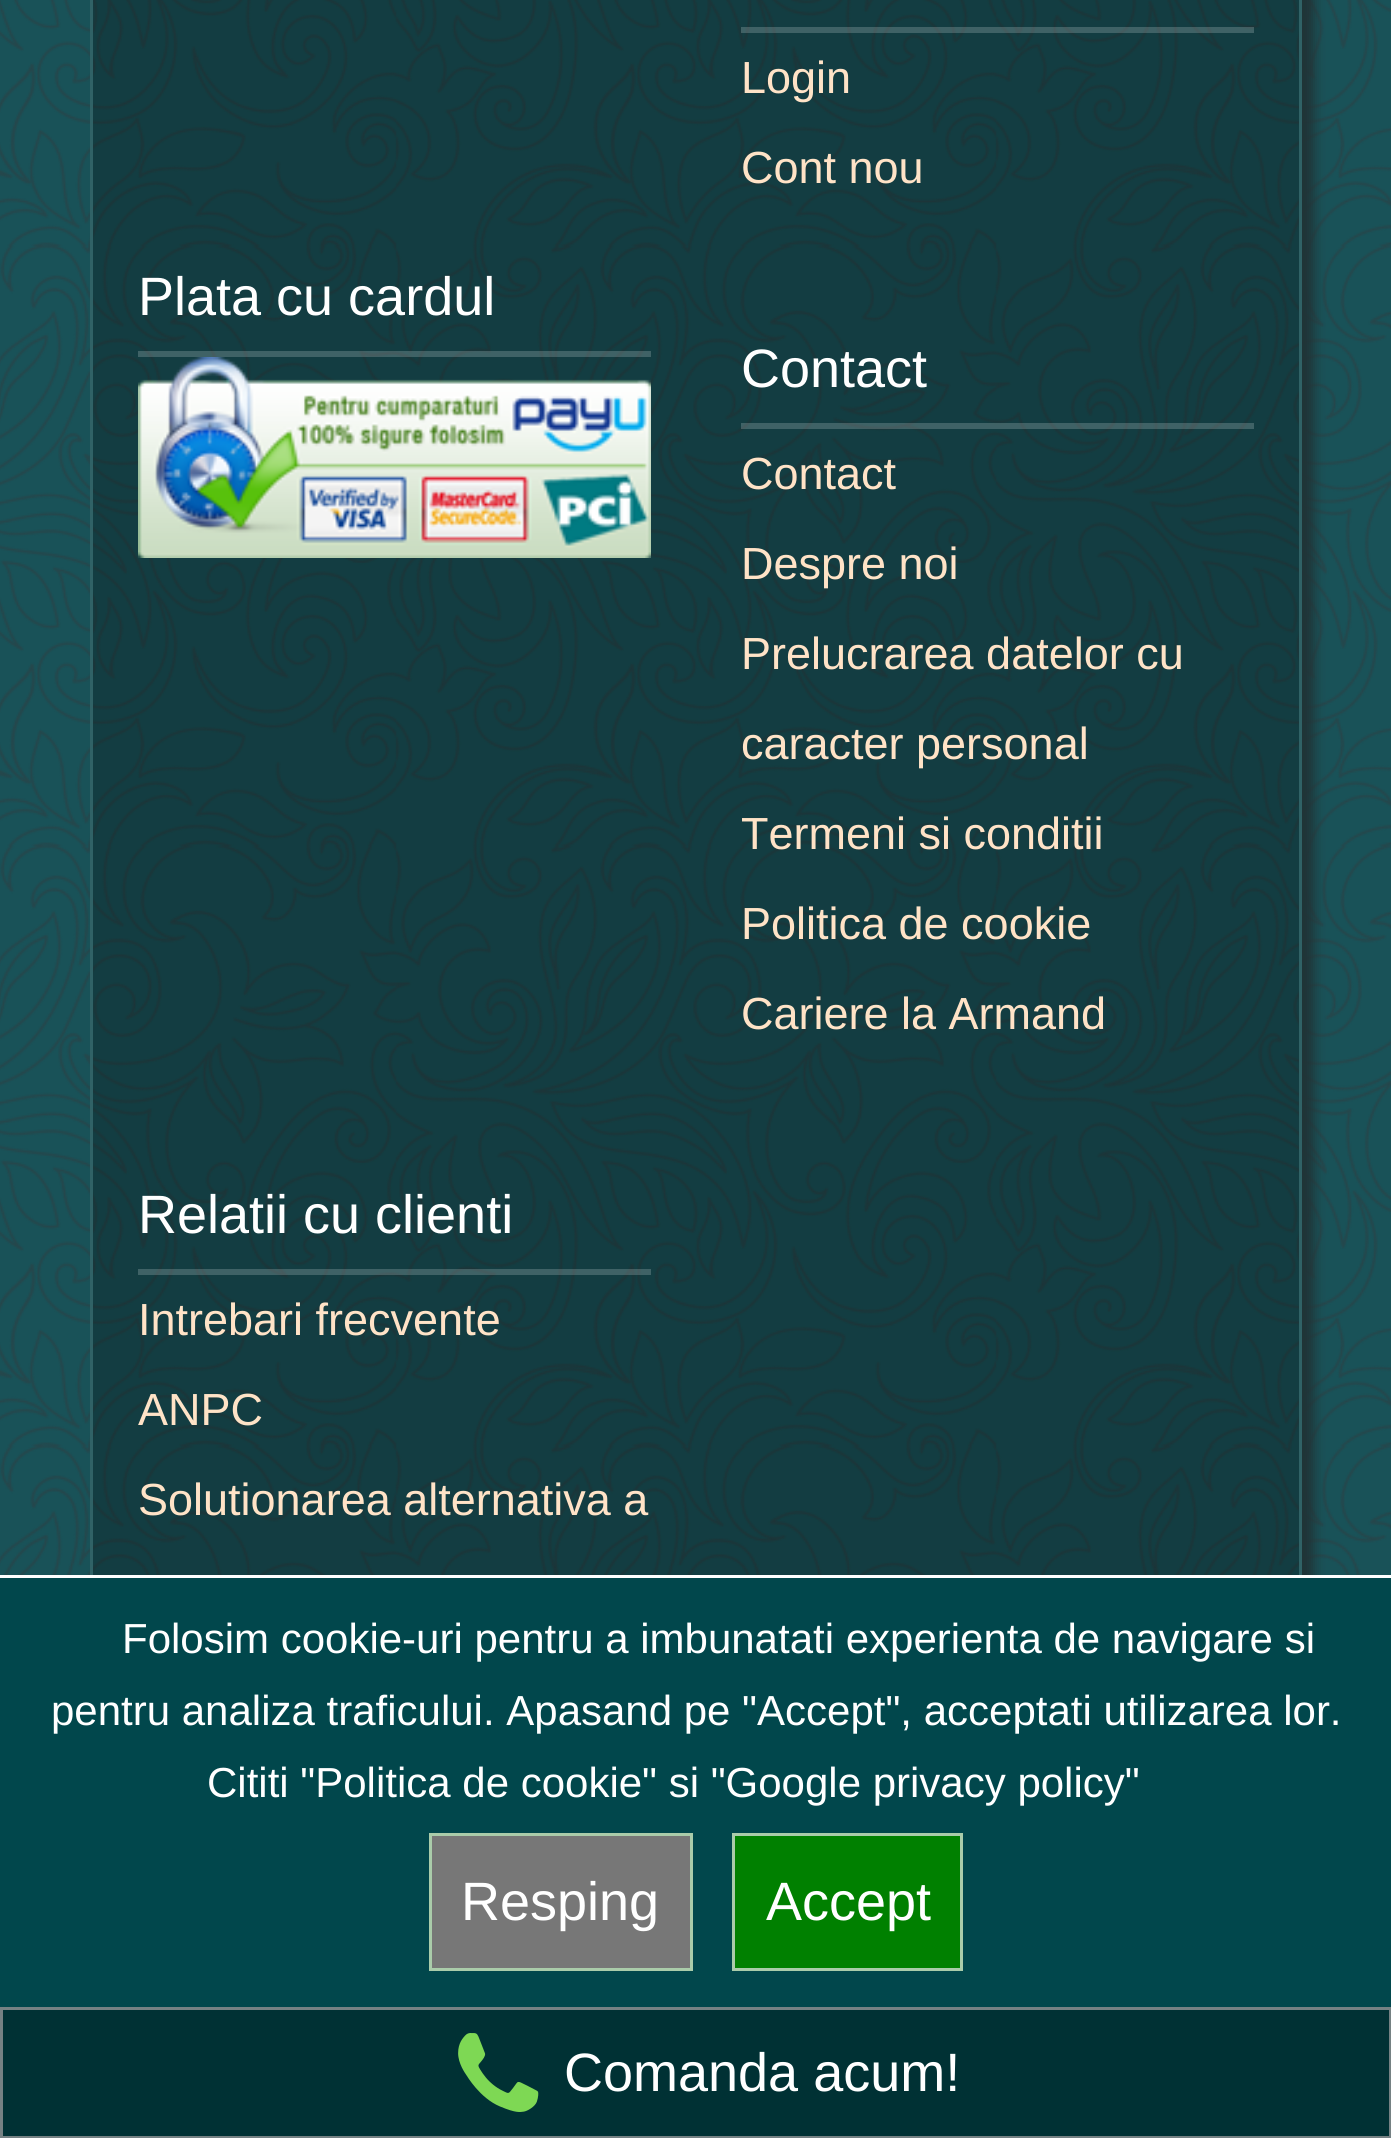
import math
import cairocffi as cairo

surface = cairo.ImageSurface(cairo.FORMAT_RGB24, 1391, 2138)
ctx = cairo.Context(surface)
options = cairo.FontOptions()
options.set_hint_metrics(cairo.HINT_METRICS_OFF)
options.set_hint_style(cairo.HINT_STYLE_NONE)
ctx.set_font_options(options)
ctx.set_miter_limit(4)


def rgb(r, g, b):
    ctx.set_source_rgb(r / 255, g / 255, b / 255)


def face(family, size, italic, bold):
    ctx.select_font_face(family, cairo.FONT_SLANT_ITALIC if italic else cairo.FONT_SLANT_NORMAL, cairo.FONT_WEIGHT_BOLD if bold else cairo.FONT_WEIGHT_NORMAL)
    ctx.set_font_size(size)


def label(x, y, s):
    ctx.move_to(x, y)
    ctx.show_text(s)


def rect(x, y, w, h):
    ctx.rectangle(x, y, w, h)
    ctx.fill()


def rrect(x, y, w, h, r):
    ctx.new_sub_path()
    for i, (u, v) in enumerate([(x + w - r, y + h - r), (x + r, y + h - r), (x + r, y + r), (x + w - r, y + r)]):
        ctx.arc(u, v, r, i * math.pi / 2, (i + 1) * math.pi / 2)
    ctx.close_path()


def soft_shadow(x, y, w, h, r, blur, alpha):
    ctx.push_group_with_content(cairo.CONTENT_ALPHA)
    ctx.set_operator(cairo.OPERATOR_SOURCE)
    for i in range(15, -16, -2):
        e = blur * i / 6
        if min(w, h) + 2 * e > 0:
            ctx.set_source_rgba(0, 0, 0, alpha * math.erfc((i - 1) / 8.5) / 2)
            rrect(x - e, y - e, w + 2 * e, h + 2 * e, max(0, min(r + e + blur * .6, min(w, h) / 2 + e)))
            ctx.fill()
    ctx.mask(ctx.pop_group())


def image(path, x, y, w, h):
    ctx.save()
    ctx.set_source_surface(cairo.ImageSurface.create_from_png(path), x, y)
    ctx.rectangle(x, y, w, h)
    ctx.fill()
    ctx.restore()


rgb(25, 82, 88)
ctx.paint()
image('image0.png', 0, 0, 1391, 1575)
ctx.save()
ctx.rectangle(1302, 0, 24, 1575)
ctx.clip()
rgb(32, 51, 54)
soft_shadow(102, -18, 1212, 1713, 0, 6, 1)
ctx.restore()
ctx.set_source_rgba(0, 0, 0, 0.25)
rect(93, 0, 1206, 1575)
ctx.rectangle(91.5, -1.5, 1209, 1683)
rgb(48, 98, 102)
ctx.set_line_width(3)
ctx.stroke()
ctx.set_source_rgba(1, 1, 1, 0.19)
rect(741, 27, 513, 6)
face('Liberation Sans', 45, 0, 0)
rgb(255, 227, 199)
label(741, 93, 'Login')
label(741, 183, 'Cont nou')
ctx.set_source_rgba(1, 1, 1, 0.19)
rect(138, 351, 513, 6)
face('Liberation Sans', 54, 0, 0)
rgb(255, 255, 255)
label(138, 315, 'Plata cu cardul')
image('image1.png', 138, 357, 513, 201)
ctx.set_source_rgba(1, 1, 1, 0.19)
rect(741, 423, 513, 6)
rgb(255, 255, 255)
label(741, 387, 'Contact')
face('Liberation Sans', 45, 0, 0)
rgb(255, 227, 199)
label(741, 489, 'Contact')
label(741, 579, 'Despre noi')
label(741, 669, 'Prelucrarea datelor cu')
label(741, 759, 'caracter personal')
label(741, 849, 'Termeni si conditii')
label(741, 939, 'Politica de cookie')
label(741, 1029, 'Cariere la Armand')
ctx.set_source_rgba(1, 1, 1, 0.19)
rect(138, 1269, 513, 6)
face('Liberation Sans', 54, 0, 0)
rgb(255, 255, 255)
label(138, 1233, 'Relatii cu clienti')
face('Liberation Sans', 45, 0, 0)
rgb(255, 227, 199)
label(138, 1335, 'Intrebari frecvente')
label(138, 1425, 'ANPC')
label(138, 1515, 'Solutionarea alternativa a')
rgb(1, 71, 76)
rect(0, 1578, 1391, 429)
rgb(255, 255, 255)
rect(0, 1575, 1391, 3)
face('Liberation Sans', 42, 0, 0)
label(122, 1653, 'Folosim cookie-uri pentru a imbunatati experienta de navigare si')
label(51, 1725, 'pentru analiza traficului. Apasand pe "Accept", acceptati utilizarea lor.')
label(207, 1797, 'Cititi "Politica de cookie" si "Google privacy policy"')
rgb(119, 119, 119)
ctx.rectangle(430.5, 1834.5, 261, 135)
ctx.fill_preserve()
rgb(170, 204, 170)
ctx.stroke()
face('Liberation Sans', 54, 0, 0)
rgb(255, 255, 255)
label(461, 1920, 'Resping')
rgb(0, 128, 0)
ctx.rectangle(733.5, 1834.5, 228, 135)
ctx.fill_preserve()
rgb(170, 204, 170)
ctx.stroke()
rgb(255, 255, 255)
label(766, 1920, 'Accept')
rgb(0, 49, 52)
ctx.rectangle(1.5, 2008.5, 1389, 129)
ctx.fill_preserve()
rgb(117, 129, 131)
ctx.stroke()
image('image2.png', 458, 2033, 81, 79)
rgb(255, 255, 255)
label(564, 2091, 'Comanda acum!')
surface.write_to_png('render.png')
